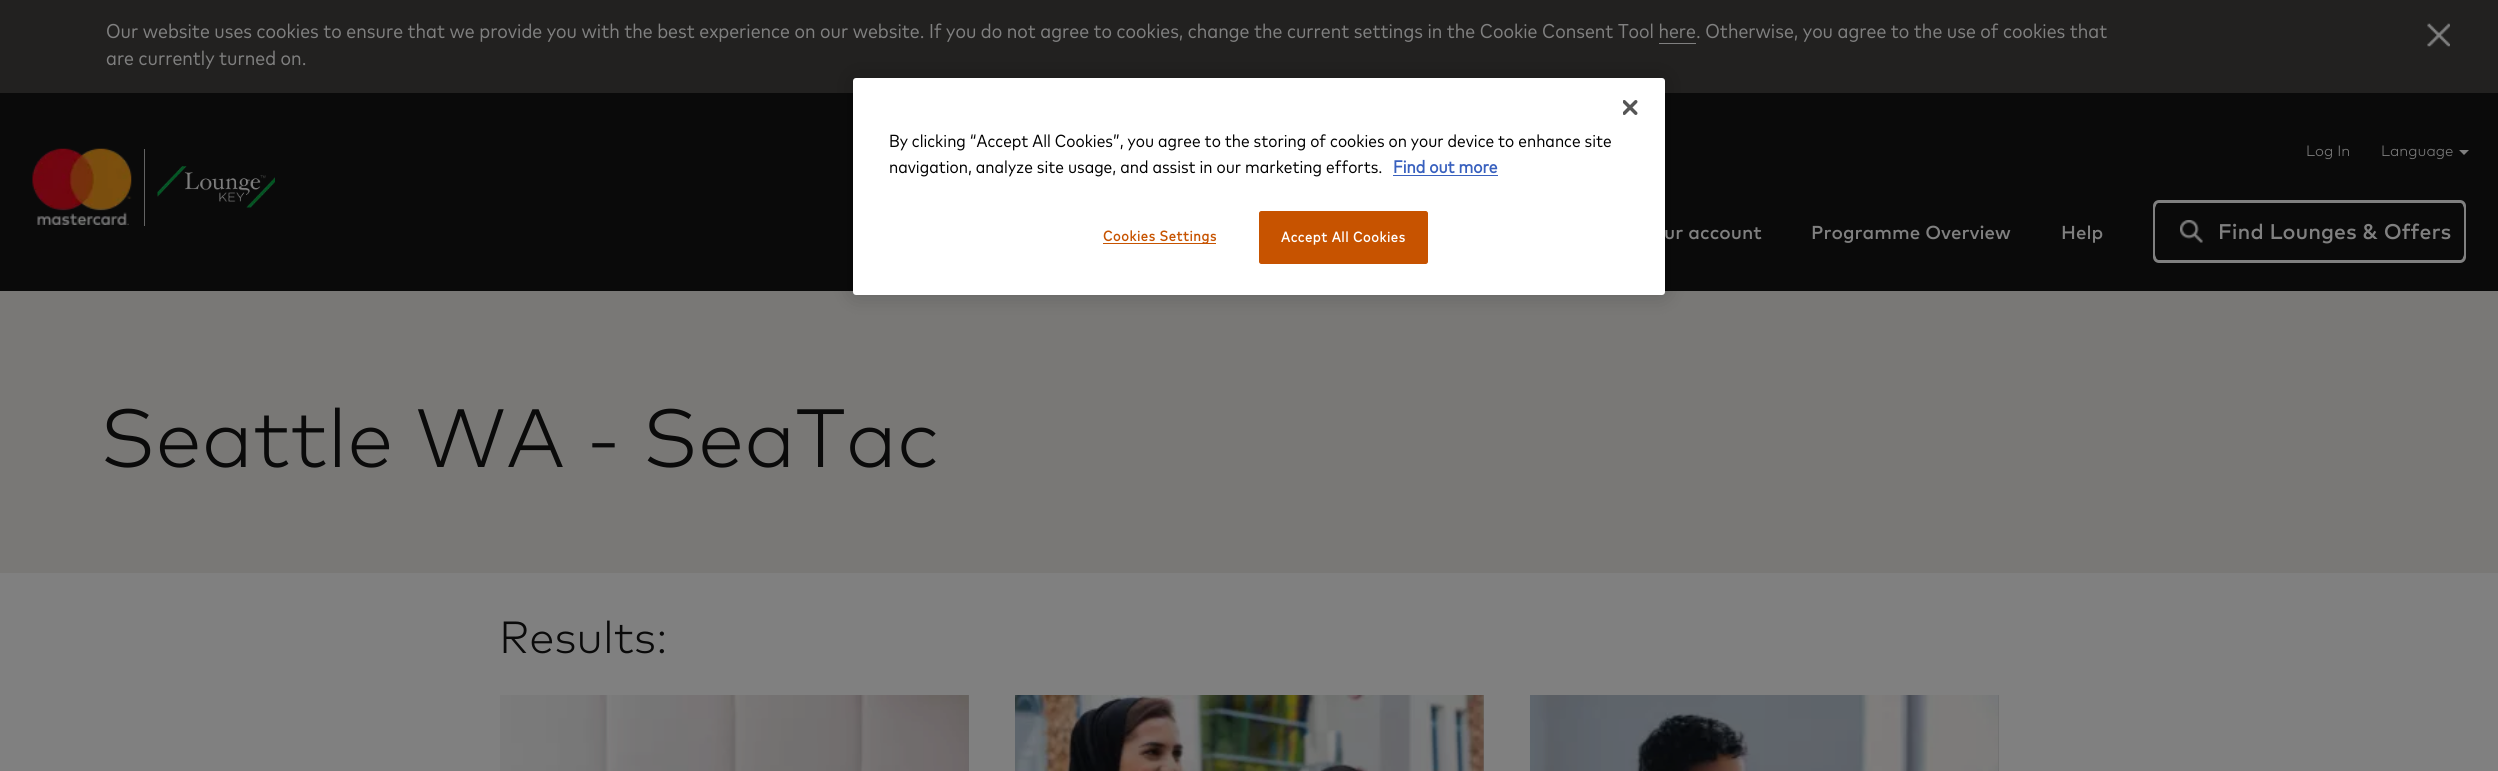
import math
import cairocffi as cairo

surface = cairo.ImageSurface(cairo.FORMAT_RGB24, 2498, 771)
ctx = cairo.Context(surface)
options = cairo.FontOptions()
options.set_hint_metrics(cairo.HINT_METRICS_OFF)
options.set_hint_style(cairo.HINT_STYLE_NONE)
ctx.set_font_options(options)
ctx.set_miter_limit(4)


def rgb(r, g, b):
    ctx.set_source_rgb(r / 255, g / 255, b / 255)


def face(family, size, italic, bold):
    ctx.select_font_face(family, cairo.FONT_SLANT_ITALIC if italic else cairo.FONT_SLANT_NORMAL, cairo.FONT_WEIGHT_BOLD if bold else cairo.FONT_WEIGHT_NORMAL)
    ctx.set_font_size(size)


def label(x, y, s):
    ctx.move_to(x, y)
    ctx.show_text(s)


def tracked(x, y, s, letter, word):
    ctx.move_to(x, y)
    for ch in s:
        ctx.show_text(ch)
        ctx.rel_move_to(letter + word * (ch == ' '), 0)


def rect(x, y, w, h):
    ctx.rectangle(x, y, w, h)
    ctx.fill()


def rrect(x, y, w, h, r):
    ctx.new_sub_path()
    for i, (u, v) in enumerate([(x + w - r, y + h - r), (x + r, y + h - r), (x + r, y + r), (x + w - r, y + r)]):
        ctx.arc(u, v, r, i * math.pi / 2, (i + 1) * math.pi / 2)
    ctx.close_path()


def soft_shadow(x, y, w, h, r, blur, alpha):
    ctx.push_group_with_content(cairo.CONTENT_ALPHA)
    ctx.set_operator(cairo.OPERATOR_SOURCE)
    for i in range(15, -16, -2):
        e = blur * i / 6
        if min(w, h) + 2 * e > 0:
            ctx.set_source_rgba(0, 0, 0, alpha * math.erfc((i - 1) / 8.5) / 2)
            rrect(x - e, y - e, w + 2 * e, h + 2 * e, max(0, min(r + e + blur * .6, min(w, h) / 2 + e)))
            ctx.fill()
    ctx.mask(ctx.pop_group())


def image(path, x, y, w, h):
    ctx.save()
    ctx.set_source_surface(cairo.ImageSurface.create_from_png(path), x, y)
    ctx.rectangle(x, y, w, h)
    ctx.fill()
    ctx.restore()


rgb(128, 128, 128)
ctx.paint()
rgb(34, 33, 32)
rect(0, 0, 2498, 93)
face('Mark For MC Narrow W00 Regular', 20, 0, 0)
rgb(128, 128, 128)
label(106, 38, 'Our website uses cookies to ensure that we provide you with the best experience on our website. If you do not agree to cookies, change the current settings in the Cookie Consent Tool here. Otherwise, you agree to the use of cookies that')
rect(1659, 43, 37, 1)
label(106, 65, 'are currently turned on.')
image('image0.png', 2427, 23, 23, 24)
rgb(10, 10, 10)
rect(0, 93, 2498, 198)
rgb(121, 120, 118)
rect(0, 291, 2498, 282)
rgb(0, 0, 0)
soft_shadow(853, 78, 812, 217, 3, 11, 0.2)
rgb(255, 255, 255)
rrect(853, 78, 812, 217, 3)
ctx.fill()
image('image1.png', 1623, 100, 15, 15)
face('Mark For MC Narrow W00 Regular', 17.5, 0, 0)
rgb(0, 0, 0)
label(889, 147, 'By clicking “Accept All Cookies”, you agree to the storing of cookies on your device to enhance site')
label(889, 173, 'navigation, analyze site usage, and assist in our marketing efforts.')
face('Mark For MC Narrow W00 Regular', 17.5, 0, 1)
rgb(56, 96, 190)
label(1393, 173, 'Find out more')
rect(1393, 175, 105, 1)
rgb(199, 83, 0)
rect(1103, 243, 113, 1)
face('Mark For MC Narrow W00 Regular', 14.25, 0, 1)
tracked(1103, 241, 'Cookies Settings', 0.75, 0)
rrect(1259.5, 211.5, 168, 52, 2)
ctx.fill_preserve()
ctx.set_line_width(1)
ctx.stroke()
rgb(255, 255, 255)
tracked(1281, 242, 'Accept All Cookies', 0.75, 0)
image('image2.png', 32, 148, 100, 77)
rgb(99, 99, 99)
rect(144, 149, 1, 77)
image('image3.png', 157, 166, 118, 42)
face('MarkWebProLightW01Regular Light', 15, 0, 0)
rgb(128, 128, 128)
label(2306, 156, 'Log In')
label(2381, 156, 'Language')
ctx.new_path()
ctx.move_to(2459, 150)
ctx.line_to(2469, 150)
ctx.line_to(2464, 155)
ctx.close_path()
ctx.fill()
face('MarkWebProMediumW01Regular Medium', 18.75, 0, 0)
label(1664, 239, 'ur account')
label(1811, 239, 'Programme Overview')
label(2061, 239, 'Help')
rrect(2154.5, 201.5, 310, 60, 4.5)
ctx.set_line_width(3)
ctx.stroke()
rgb(10, 10, 10)
rrect(2155, 203, 309, 57, 6)
ctx.fill()
image('image4.png', 2180, 220, 23, 23)
face('MarkWebProMediumW01Regular Medium', 21.25, 0, 0)
rgb(128, 128, 128)
label(2218, 239, 'Find Lounges & Offers')
face('MarkWebProLightW01Regular Light', 82.5, 0, 0)
rgb(10, 10, 10)
label(100, 467, 'Seattle WA - SeaTac')
face('MarkWebProLightW01Regular Light', 45, 0, 0)
label(499, 653, 'Results:')
ctx.rectangle(500.5, 695.5, 468, 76)
rgb(104, 104, 103)
ctx.set_line_width(1)
ctx.stroke()
image('image5.png', 500, 695, 469, 76)
ctx.rectangle(1015.5, 695.5, 468, 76)
ctx.stroke()
image('image6.png', 1015, 695, 469, 76)
ctx.rectangle(1530.5, 695.5, 468, 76)
ctx.stroke()
image('image7.png', 1530, 695, 469, 76)
surface.write_to_png('render.png')
